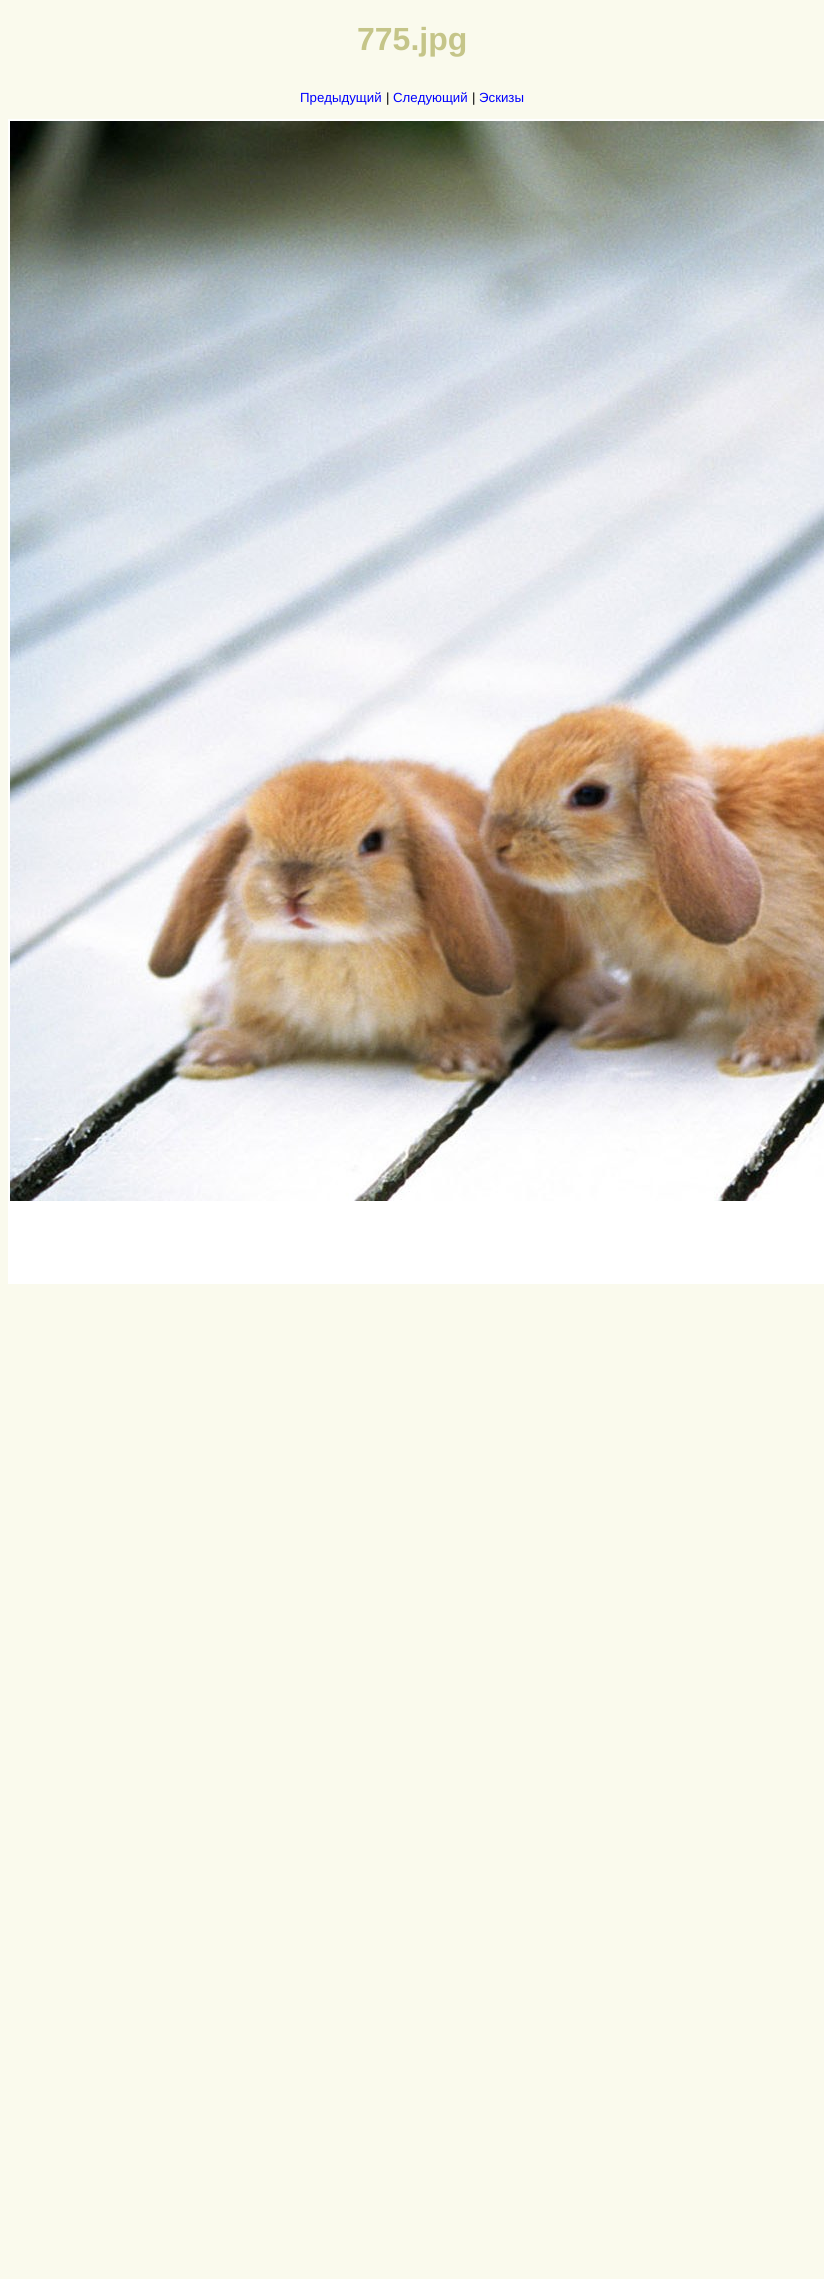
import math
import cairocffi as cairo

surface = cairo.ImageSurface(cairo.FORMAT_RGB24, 824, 2279)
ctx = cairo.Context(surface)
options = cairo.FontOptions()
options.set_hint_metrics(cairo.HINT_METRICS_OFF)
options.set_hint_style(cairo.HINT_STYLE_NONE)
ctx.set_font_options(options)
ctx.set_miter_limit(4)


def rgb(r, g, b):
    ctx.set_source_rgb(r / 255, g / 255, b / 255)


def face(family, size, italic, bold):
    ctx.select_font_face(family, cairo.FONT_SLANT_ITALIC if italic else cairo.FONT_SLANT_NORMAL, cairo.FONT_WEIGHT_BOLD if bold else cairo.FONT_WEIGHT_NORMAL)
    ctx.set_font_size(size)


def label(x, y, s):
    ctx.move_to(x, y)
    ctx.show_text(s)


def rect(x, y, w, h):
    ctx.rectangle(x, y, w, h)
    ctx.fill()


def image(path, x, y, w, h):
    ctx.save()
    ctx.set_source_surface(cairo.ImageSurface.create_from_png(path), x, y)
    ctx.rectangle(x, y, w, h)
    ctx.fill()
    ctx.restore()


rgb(250, 250, 237)
ctx.paint()
face('Liberation Sans', 32, 0, 1)
rgb(197, 197, 137)
label(357, 50, '775.jpg')
face('Liberation Sans', 13.25, 0, 0)
rgb(0, 0, 255)
label(300, 102, 'Предыдущий')
rgb(0, 0, 0)
label(386, 102, '|')
rgb(0, 0, 255)
label(393, 102, 'Следующий')
rgb(0, 0, 0)
label(472, 102, '|')
rgb(0, 0, 255)
label(479, 102, 'Эскизы')
rgb(255, 255, 255)
rect(8, 119, 816, 1165)
image('image0.png', 10, 121, 814, 1080)
surface.write_to_png('render.png')
